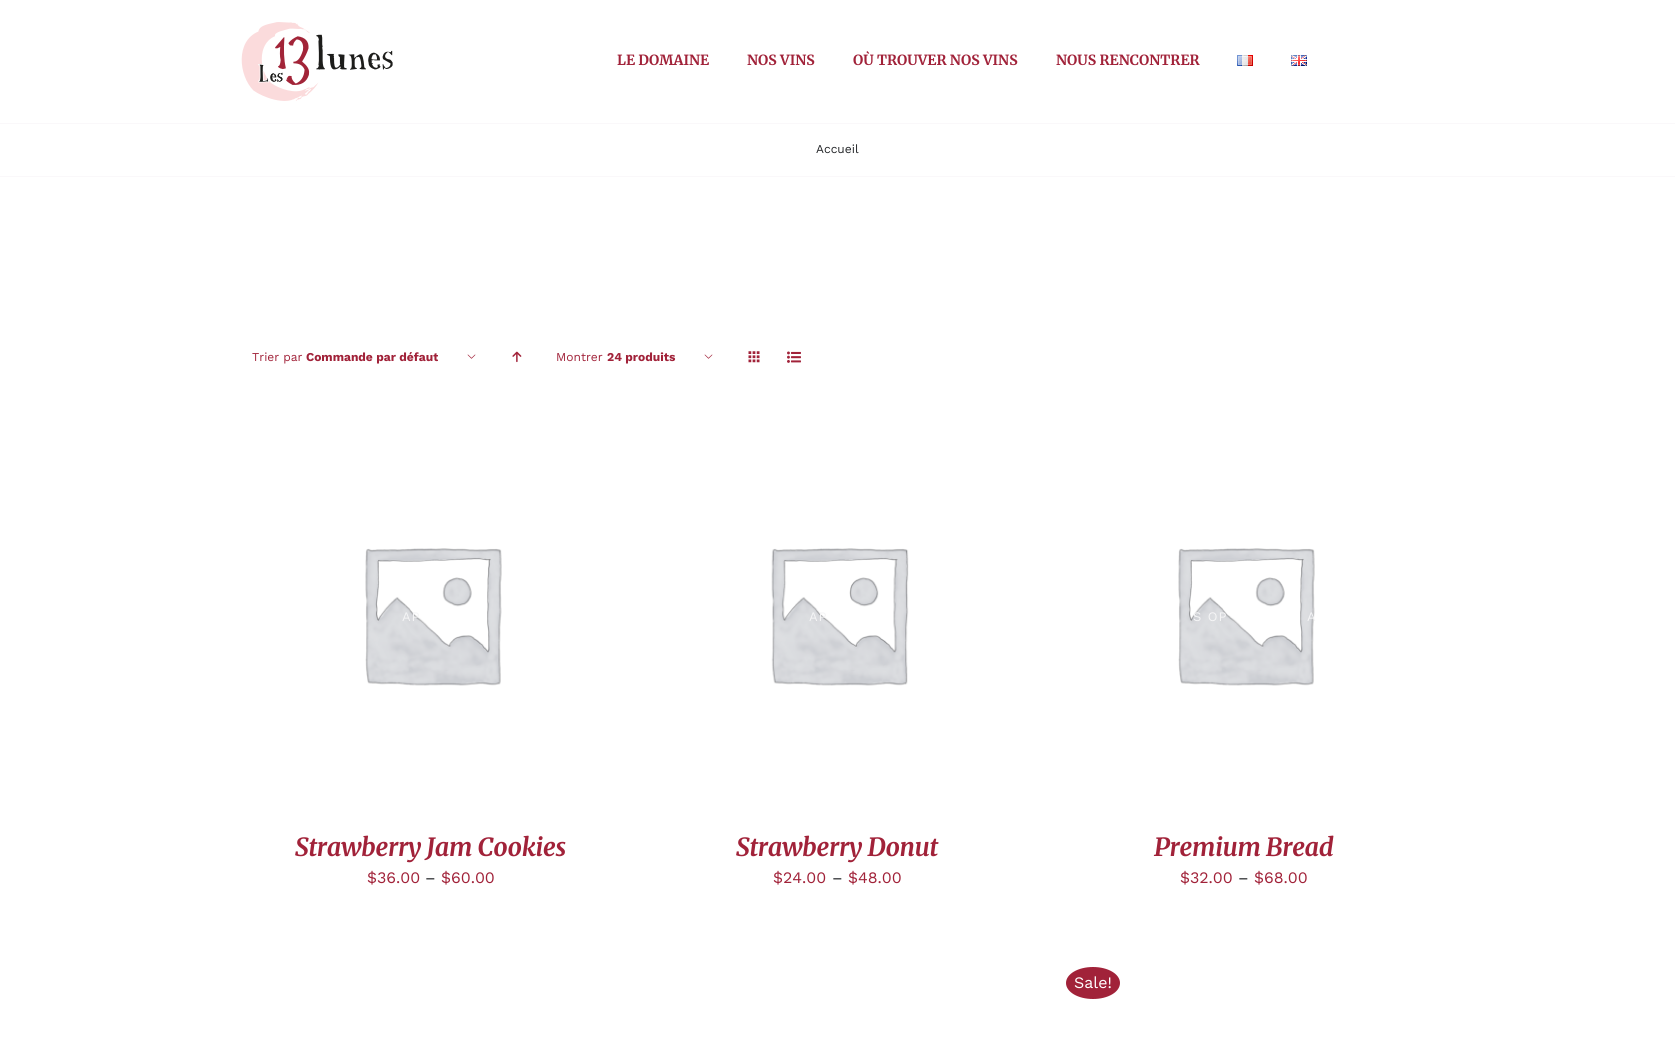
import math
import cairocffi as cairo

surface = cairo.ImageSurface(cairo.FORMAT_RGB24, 1675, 1058)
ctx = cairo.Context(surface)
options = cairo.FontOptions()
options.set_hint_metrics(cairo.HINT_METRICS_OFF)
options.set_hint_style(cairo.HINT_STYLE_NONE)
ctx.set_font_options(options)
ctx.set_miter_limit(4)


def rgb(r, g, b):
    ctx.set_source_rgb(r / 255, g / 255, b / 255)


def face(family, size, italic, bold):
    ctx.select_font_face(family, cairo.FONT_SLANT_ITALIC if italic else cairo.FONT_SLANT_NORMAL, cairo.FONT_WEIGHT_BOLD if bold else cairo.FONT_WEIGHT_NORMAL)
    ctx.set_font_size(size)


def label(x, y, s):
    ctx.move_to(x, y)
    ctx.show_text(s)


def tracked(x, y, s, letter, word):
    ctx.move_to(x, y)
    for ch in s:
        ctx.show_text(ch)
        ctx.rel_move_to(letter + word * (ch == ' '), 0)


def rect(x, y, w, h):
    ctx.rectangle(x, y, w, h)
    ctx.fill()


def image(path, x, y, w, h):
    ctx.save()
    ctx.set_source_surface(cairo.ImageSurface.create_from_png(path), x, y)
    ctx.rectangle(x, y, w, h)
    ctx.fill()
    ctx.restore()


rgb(255, 255, 255)
ctx.paint()
image('image0.png', 241, 22, 152, 79)
face('Merriweather Light', 14, 0, 0)
rgb(161, 34, 57)
label(617, 65, 'LE DOMAINE')
label(747, 65, 'NOS VINS')
label(853, 65, 'OÙ TROUVER NOS VINS')
label(1056, 65, 'NOUS RENCONTRER')
image('image1.png', 1237, 55, 16, 11)
image('image2.png', 1291, 55, 16, 11)
rgb(250, 248, 250)
rect(0, 123, 1675, 1)
rect(0, 176, 1675, 1)
face('Work Sans', 12, 0, 0)
rgb(33, 35, 38)
label(816, 153, 'Accueil')
rgb(161, 34, 57)
label(252, 361, 'Trier par')
ctx.save()
ctx.rectangle(252, 338, 186, 39)
ctx.clip()
face('Work Sans', 12, 0, 1)
label(306, 361, 'Commande par défaut')
ctx.restore()
image('image3.png', 467, 354, 9, 5)
image('image4.png', 512, 351, 10, 12)
label(556, 361, 'Montrer')
face('Work Sans', 12, 0, 1)
label(607, 361, '24 produits')
image('image3.png', 704, 354, 9, 5)
image('image5.png', 748, 351, 12, 12)
image('image6.png', 787, 351, 14, 12)
image('image7.png', 365, 548, 137, 138)
face('Work Sans', 13, 0, 0)
rgb(245, 245, 246)
tracked(402, 621, 'AP', 1, 0)
face('Merriweather Light', 25, 1, 0)
rgb(161, 34, 57)
tracked(295, 856, 'Strawberry Jam Cookies', -0.3, 0)
face('Work Sans', 16, 0, 0)
label(367, 883, '$36.00')
rgb(33, 35, 38)
label(425, 883, '–')
rgb(161, 34, 57)
label(441, 883, '$60.00')
image('image8.png', 771, 548, 138, 138)
face('Work Sans', 13, 0, 0)
rgb(245, 245, 246)
tracked(809, 621, 'AP', 1, 0)
face('Merriweather Light', 25, 1, 0)
rgb(161, 34, 57)
tracked(736, 856, 'Strawberry Donut', -0.3, 0)
face('Work Sans', 16, 0, 0)
label(773, 883, '$24.00')
rgb(33, 35, 38)
label(832, 883, '–')
rgb(161, 34, 57)
label(848, 883, '$48.00')
image('image7.png', 1178, 548, 137, 138)
face('Work Sans', 13, 0, 0)
rgb(245, 245, 246)
tracked(1193, 621, 'S OP', 1, 0)
tracked(1307, 621, 'A', 1, 0)
face('Merriweather Light', 25, 1, 0)
rgb(161, 34, 57)
tracked(1154, 856, 'Premium Bread', -0.3, 0)
face('Work Sans', 16, 0, 0)
label(1180, 883, '$32.00')
rgb(33, 35, 38)
label(1238, 883, '–')
rgb(161, 34, 57)
label(1254, 883, '$68.00')
ctx.new_path()
ctx.move_to(1093, 967)
ctx.curve_to(1108, 967, 1120, 974, 1120, 983)
ctx.curve_to(1120, 992, 1108, 999, 1093, 999)
ctx.curve_to(1078, 999, 1066, 992, 1066, 983)
ctx.curve_to(1066, 974, 1078, 967, 1093, 967)
ctx.close_path()
ctx.fill()
rgb(255, 255, 255)
label(1074, 988, 'Sale!')
surface.write_to_png('render.png')
